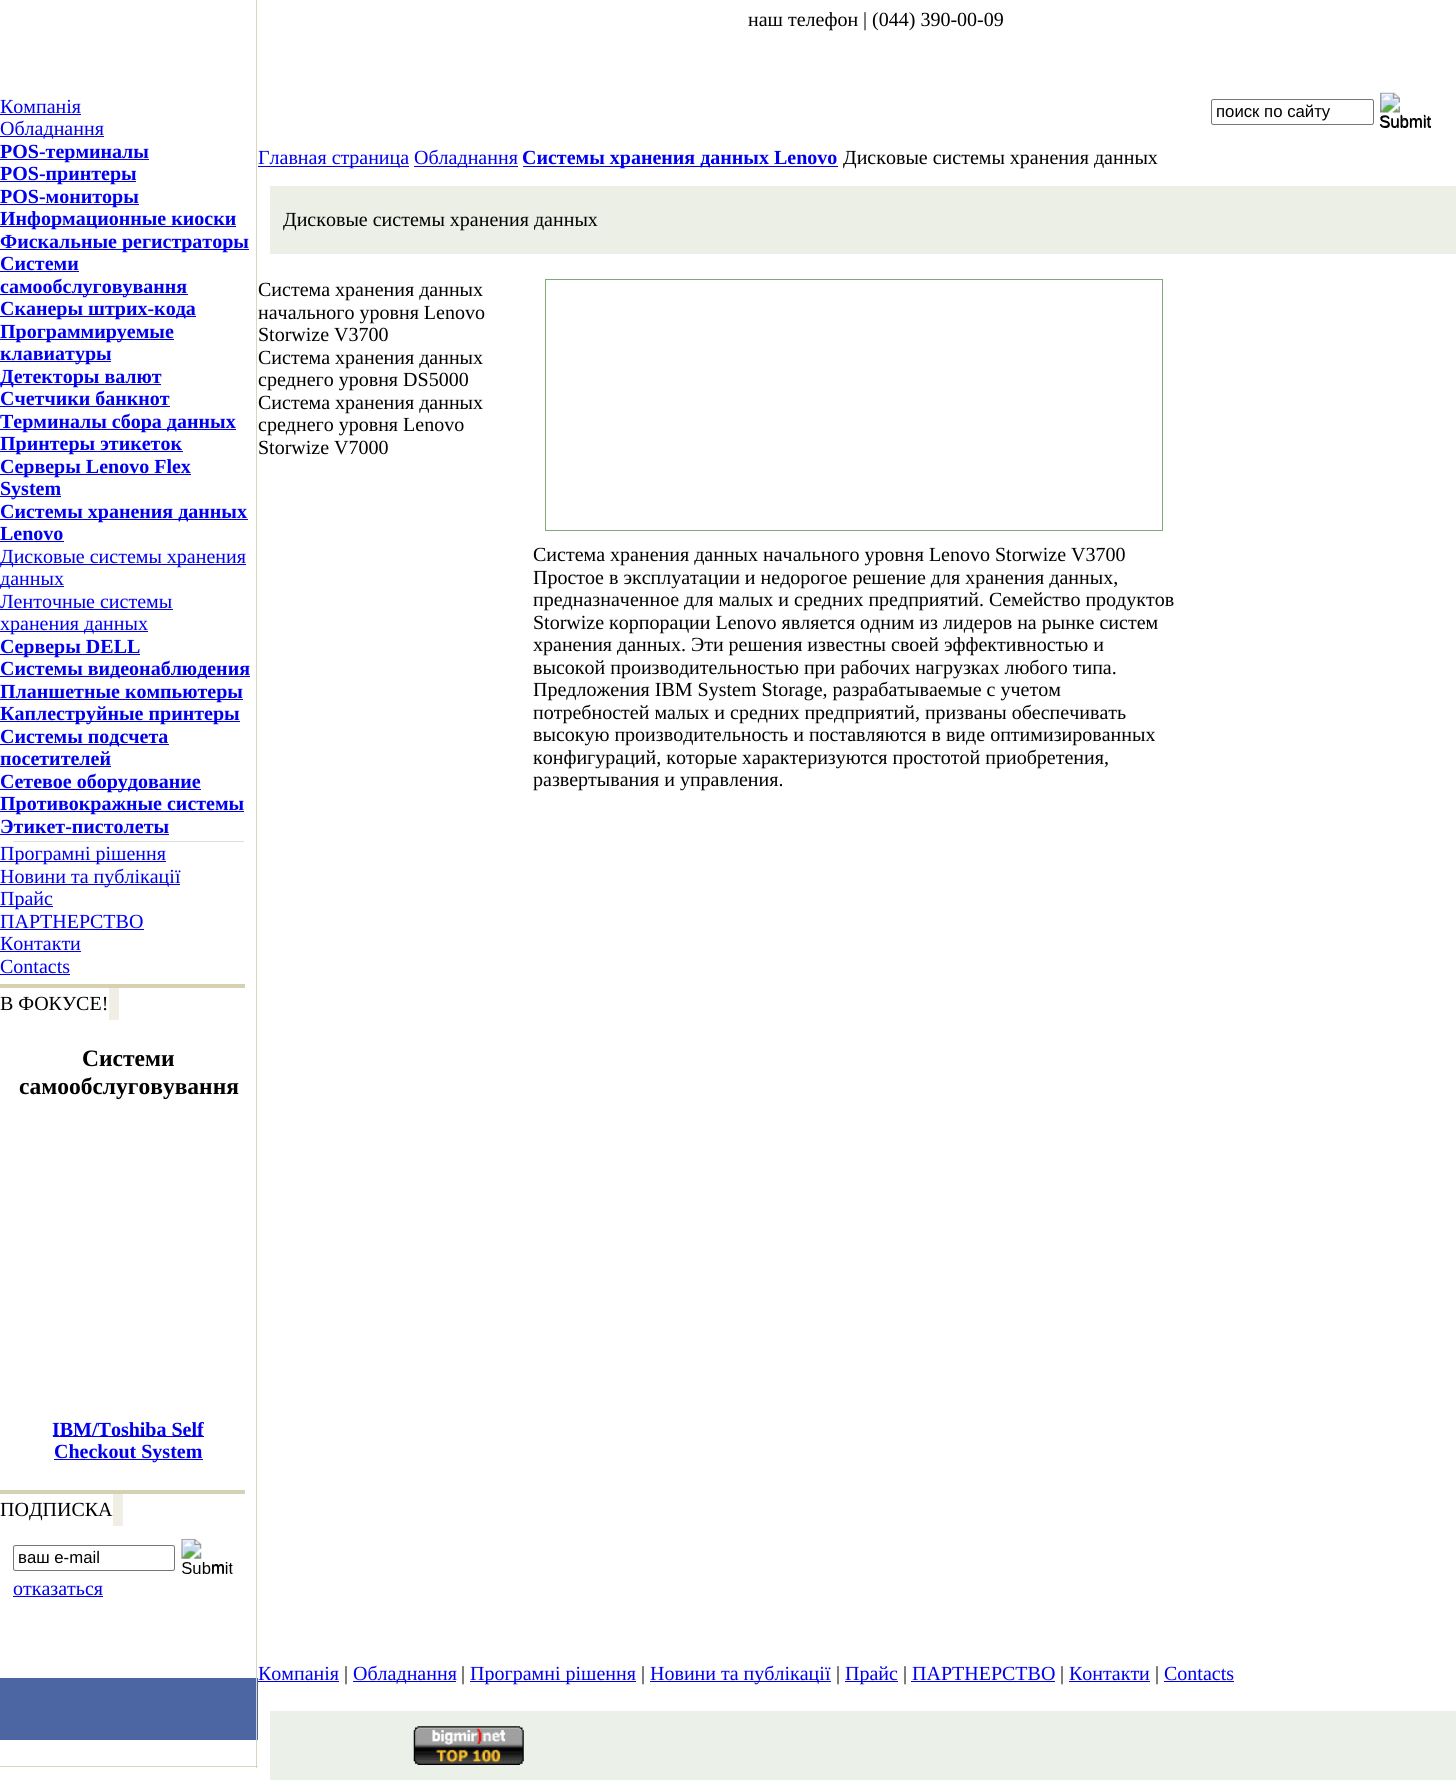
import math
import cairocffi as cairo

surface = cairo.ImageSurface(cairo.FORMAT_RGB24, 1456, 1780)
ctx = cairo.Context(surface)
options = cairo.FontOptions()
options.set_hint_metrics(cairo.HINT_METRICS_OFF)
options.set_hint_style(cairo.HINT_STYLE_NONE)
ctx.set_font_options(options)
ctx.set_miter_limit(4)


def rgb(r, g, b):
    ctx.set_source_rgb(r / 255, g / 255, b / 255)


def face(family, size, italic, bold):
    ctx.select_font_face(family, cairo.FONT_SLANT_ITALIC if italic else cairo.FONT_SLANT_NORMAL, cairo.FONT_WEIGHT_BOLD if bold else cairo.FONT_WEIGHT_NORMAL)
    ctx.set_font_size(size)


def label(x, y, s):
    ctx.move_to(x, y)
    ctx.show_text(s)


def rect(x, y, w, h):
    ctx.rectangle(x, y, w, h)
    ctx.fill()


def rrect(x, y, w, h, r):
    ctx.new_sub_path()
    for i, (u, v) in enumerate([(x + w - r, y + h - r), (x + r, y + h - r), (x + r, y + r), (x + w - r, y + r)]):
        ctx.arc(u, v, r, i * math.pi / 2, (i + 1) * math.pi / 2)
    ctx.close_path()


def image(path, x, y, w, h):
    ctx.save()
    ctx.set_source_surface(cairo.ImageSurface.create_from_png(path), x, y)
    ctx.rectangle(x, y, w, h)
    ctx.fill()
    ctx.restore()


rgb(255, 255, 255)
ctx.paint()
face('Liberation Serif', 20, 0, 0)
rgb(0, 0, 238)
label(0, 113, 'Компанія')
rect(0, 114, 81, 1)
rect(0, 136, 104, 1)
label(0, 135, 'Обладнання')
rect(0, 159, 149, 1)
face('Liberation Serif', 20, 0, 1)
label(0, 158, 'POS-терминалы')
rect(0, 181, 136, 1)
label(0, 180, 'POS-принтеры')
rect(0, 204, 139, 1)
label(0, 203, 'POS-мониторы')
rect(0, 226, 236, 1)
label(0, 225, 'Информационные киоски')
rect(0, 249, 249, 1)
label(0, 248, 'Фискальные регистраторы')
label(0, 270, 'Системи')
rect(0, 271, 79, 1)
rect(0, 294, 188, 1)
label(0, 293, 'самообслуговування')
rect(0, 316, 196, 1)
label(0, 315, 'Сканеры штрих-кода')
rect(0, 339, 174, 1)
label(0, 338, 'Программируемые')
rect(0, 361, 111, 1)
label(0, 360, 'клавиатуры')
rect(0, 384, 161, 1)
label(0, 383, 'Детекторы валют')
label(0, 405, 'Счетчики банкнот')
rect(0, 406, 170, 1)
rect(0, 429, 236, 1)
label(0, 428, 'Терминалы сбора данных')
rect(0, 451, 183, 1)
label(0, 450, 'Принтеры этикеток')
rect(0, 474, 191, 1)
label(0, 473, 'Серверы Lenovo Flex')
rect(0, 496, 61, 1)
label(0, 495, 'System')
rect(0, 519, 248, 1)
label(0, 518, 'Системы хранения данных')
label(0, 540, 'Lenovo')
rect(0, 541, 64, 1)
rect(0, 564, 246, 1)
face('Liberation Serif', 20, 0, 0)
label(0, 563, 'Дисковые системы хранения')
rect(0, 586, 64, 1)
label(0, 585, 'данных')
label(0, 608, 'Ленточные системы')
rect(0, 609, 173, 1)
rect(0, 631, 148, 1)
label(0, 630, 'хранения данных')
rect(0, 654, 140, 1)
face('Liberation Serif', 20, 0, 1)
label(0, 653, 'Серверы DELL')
rect(0, 676, 250, 1)
label(0, 675, 'Системы видеонаблюдения')
rect(0, 699, 243, 1)
label(0, 698, 'Планшетные компьютеры')
rect(0, 721, 240, 1)
label(0, 720, 'Каплеструйные принтеры')
rect(0, 744, 169, 1)
label(0, 743, 'Систeмы подсчета')
label(0, 765, 'посетителей')
rect(0, 766, 111, 1)
rect(0, 789, 201, 1)
label(0, 788, 'Сетевое оборудование')
rect(0, 811, 244, 1)
label(0, 810, 'Противокражные системы')
label(0, 833, 'Этикет-пистолеты')
rect(0, 834, 169, 1)
rgb(216, 223, 221)
rect(13, 841, 231, 1)
rgb(0, 0, 238)
rect(0, 861, 166, 1)
face('Liberation Serif', 20, 0, 0)
label(0, 860, 'Програмні рішення')
rect(0, 884, 180, 1)
label(0, 883, 'Новини та публікації')
rect(0, 906, 53, 1)
label(0, 905, 'Прайс')
label(0, 928, 'ПАРТНЕРСТВО')
rect(0, 929, 144, 1)
label(0, 950, 'Контакти')
rect(0, 951, 81, 1)
label(0, 973, 'Contacts')
rect(0, 974, 70, 1)
rgb(217, 214, 191)
rect(256, 0, 1, 1678)
rgb(213, 209, 178)
rect(0, 984, 245, 4)
rgb(0, 0, 0)
label(0, 1010, 'В ФОКУСЕ!')
rgb(241, 239, 229)
rect(109, 988, 10, 32)
face('Liberation Serif', 23.5, 0, 1)
rgb(0, 0, 0)
label(82, 1066, 'Системи')
label(19, 1094, 'самообслуговування')
rgb(0, 0, 238)
rect(53, 1436, 151, 1)
face('Liberation Serif', 20, 0, 1)
label(52, 1436, 'IBM/Toshiba Self')
rect(54, 1459, 149, 1)
label(54, 1458, 'Checkout System')
rgb(213, 209, 178)
rect(0, 1490, 245, 4)
face('Liberation Serif', 20, 0, 0)
rgb(0, 0, 0)
label(0, 1516, 'ПОДПИСКА')
rgb(241, 239, 229)
rect(113, 1494, 10, 32)
rrect(13.5, 1545.5, 161, 25, 2)
rgb(118, 118, 118)
ctx.set_line_width(1)
ctx.stroke()
face('Liberation Sans', 16.75, 0, 0)
rgb(0, 0, 0)
label(18, 1563, 'ваш e-mail')
image('image0.png', 181, 1538, 52, 36)
label(211, 1573, 'm')
face('Liberation Serif', 20, 0, 0)
rgb(0, 0, 238)
label(13, 1595, 'отказаться')
rect(13, 1596, 90, 1)
rgb(76, 102, 163)
rect(0, 1678, 258, 62)
rgb(217, 214, 191)
rect(256, 1678, 1, 90)
rect(0, 1766, 258, 1)
rgb(0, 0, 0)
label(748, 26, 'наш телефон | (044) 390-00-09')
rrect(1211.5, 99.5, 162, 25, 2)
rgb(118, 118, 118)
ctx.stroke()
face('Liberation Sans', 16.75, 0, 0)
rgb(0, 0, 0)
label(1216, 117, 'поиск по сайту')
image('image1.png', 1380, 92, 51, 36)
label(1379, 127, 'Submit')
rgb(0, 0, 238)
rect(258, 166, 151, 1)
face('Liberation Serif', 20, 0, 0)
label(258, 164, 'Главная страница')
rect(414, 166, 104, 1)
label(414, 164, 'Обладнання')
rect(523, 166, 315, 1)
face('Liberation Serif', 20, 0, 1)
label(522, 164, 'Системы хранения данных Lenovo')
face('Liberation Serif', 20, 0, 0)
rgb(0, 0, 0)
label(843, 164, 'Дисковые системы хранения данных')
rgb(235, 239, 230)
rect(270, 186, 1186, 68)
rgb(0, 0, 0)
label(283, 226, 'Дисковые системы хранения данных')
label(258, 296, 'Система хранения данных')
label(258, 319, 'начального уровня Lenovo')
label(258, 341, 'Storwize V3700')
label(258, 364, 'Система хранения данных')
label(258, 386, 'среднего уровня DS5000')
label(258, 409, 'Система хранения данных')
label(258, 431, 'среднего уровня Lenovo')
label(258, 454, 'Storwize V7000')
ctx.rectangle(545.5, 279.5, 617, 251)
rgb(129, 168, 121)
ctx.stroke()
rgb(0, 0, 0)
label(533, 561, 'Система хранения данных начального уровня Lenovo Storwize V3700')
label(533, 584, 'Простое в эксплуатации и недорогое решение для хранения данных,')
label(533, 606, 'предназначенное для малых и средних предприятий. Семейство продуктов')
label(533, 629, 'Storwize корпорации Lenovo является одним из лидеров на рынке систем')
label(533, 651, 'хранения данных. Эти решения известны своей эффективностью и')
label(533, 674, 'высокой производительностью при рабочих нагрузках любого типа.')
label(533, 696, 'Предложения IBM System Storage, разрабатываемые с учетом')
label(533, 719, 'потребностей малых и средних предприятий, призваны обеспечивать')
label(533, 741, 'высокую производительность и поставляются в виде оптимизированных')
label(533, 764, 'конфигураций, которые характеризуются простотой приобретения,')
label(533, 786, 'развертывания и управления.')
rgb(0, 0, 238)
label(258, 1680, 'Компанія')
rect(258, 1681, 81, 1)
rgb(0, 0, 0)
label(344, 1680, '|')
rgb(0, 0, 238)
rect(353, 1681, 103, 1)
label(353, 1680, 'Обладнання')
rgb(0, 0, 0)
label(461, 1680, '|')
rgb(0, 0, 238)
rect(470, 1681, 166, 1)
label(470, 1680, 'Програмні рішення')
rgb(0, 0, 0)
label(641, 1680, '|')
rgb(0, 0, 238)
rect(650, 1681, 181, 1)
label(650, 1680, 'Новини та публікації')
rgb(0, 0, 0)
label(836, 1680, '|')
rgb(0, 0, 238)
rect(845, 1681, 53, 1)
label(845, 1680, 'Прайс')
rgb(0, 0, 0)
label(903, 1680, '|')
rgb(0, 0, 238)
label(912, 1680, 'ПАРТНЕРСТВО')
rect(911, 1681, 144, 1)
rgb(0, 0, 0)
label(1060, 1680, '|')
rgb(0, 0, 238)
label(1069, 1680, 'Контакти')
rect(1069, 1681, 81, 1)
rgb(0, 0, 0)
label(1155, 1680, '|')
rgb(0, 0, 238)
label(1164, 1680, 'Contacts')
rect(1164, 1681, 70, 1)
rgb(235, 241, 233)
rect(270, 1711, 1186, 69)
image('image2.png', 413, 1726, 111, 39)
surface.write_to_png('render.png')
